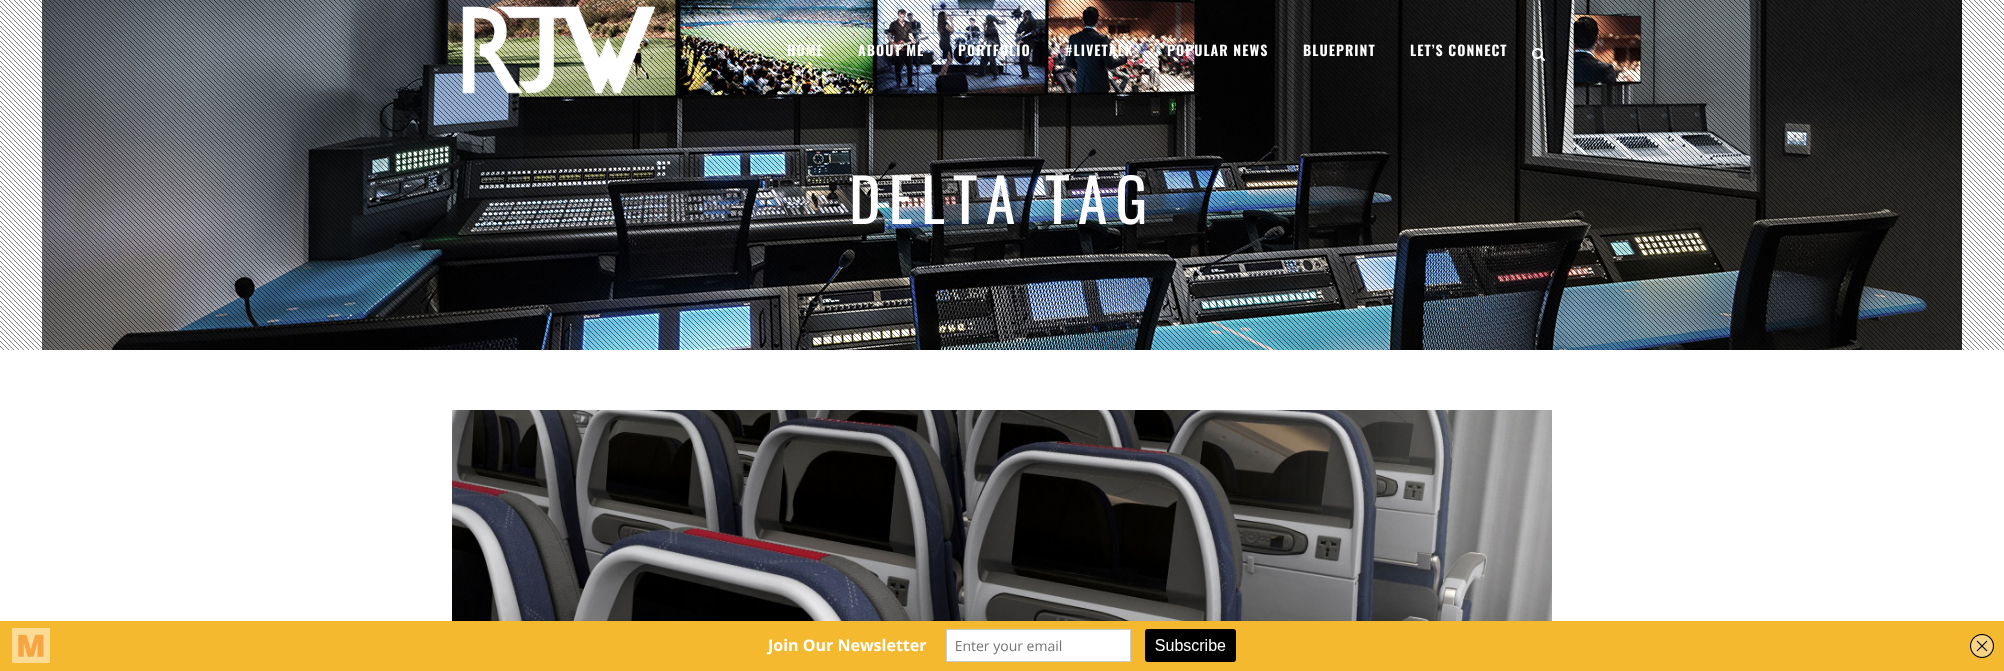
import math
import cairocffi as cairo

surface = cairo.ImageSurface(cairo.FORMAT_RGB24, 2004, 671)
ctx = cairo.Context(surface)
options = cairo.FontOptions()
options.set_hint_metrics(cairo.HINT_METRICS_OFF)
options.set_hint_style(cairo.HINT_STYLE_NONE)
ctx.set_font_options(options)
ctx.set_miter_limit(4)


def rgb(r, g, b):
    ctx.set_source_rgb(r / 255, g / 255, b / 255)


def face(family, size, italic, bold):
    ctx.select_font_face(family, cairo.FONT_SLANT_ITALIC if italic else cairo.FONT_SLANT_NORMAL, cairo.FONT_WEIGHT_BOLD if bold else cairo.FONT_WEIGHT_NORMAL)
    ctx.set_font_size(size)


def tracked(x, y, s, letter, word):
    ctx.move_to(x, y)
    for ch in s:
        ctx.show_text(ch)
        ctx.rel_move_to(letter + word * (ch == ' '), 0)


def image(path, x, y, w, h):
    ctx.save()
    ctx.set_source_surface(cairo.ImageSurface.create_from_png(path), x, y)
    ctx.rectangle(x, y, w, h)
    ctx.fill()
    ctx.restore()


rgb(255, 255, 255)
ctx.paint()
image('image2.png', 42, 0, 1920, 350)
image('image3.png', 0, 0, 2004, 350)
image('image0.png', 462, 6, 194, 88)
face('Oswald', 14, 0, 1)
rgb(255, 255, 255)
tracked(787, 56, 'HOME', 1, 0)
tracked(858, 56, 'ABOUT ME', 1, 0)
tracked(958, 56, 'PORTFOLIO', 1, 0)
tracked(1065, 56, '#LIVETALK', 1, 0)
tracked(1167, 56, 'POPULAR NEWS', 1, 0)
tracked(1303, 56, 'BLUEPRINT', 1, 0)
tracked(1410, 56, 'LET’S CONNECT', 1, 0)
image('image1.png', 1532, 48, 13, 13)
face('Oswald', 60, 0, 0)
tracked(849, 224, 'DELTA TAG', 8, 0)
image('image4.png', 452, 410, 1100, 211)
image('image5.png', 0, 621, 2004, 50)
surface.write_to_png('render.png')
